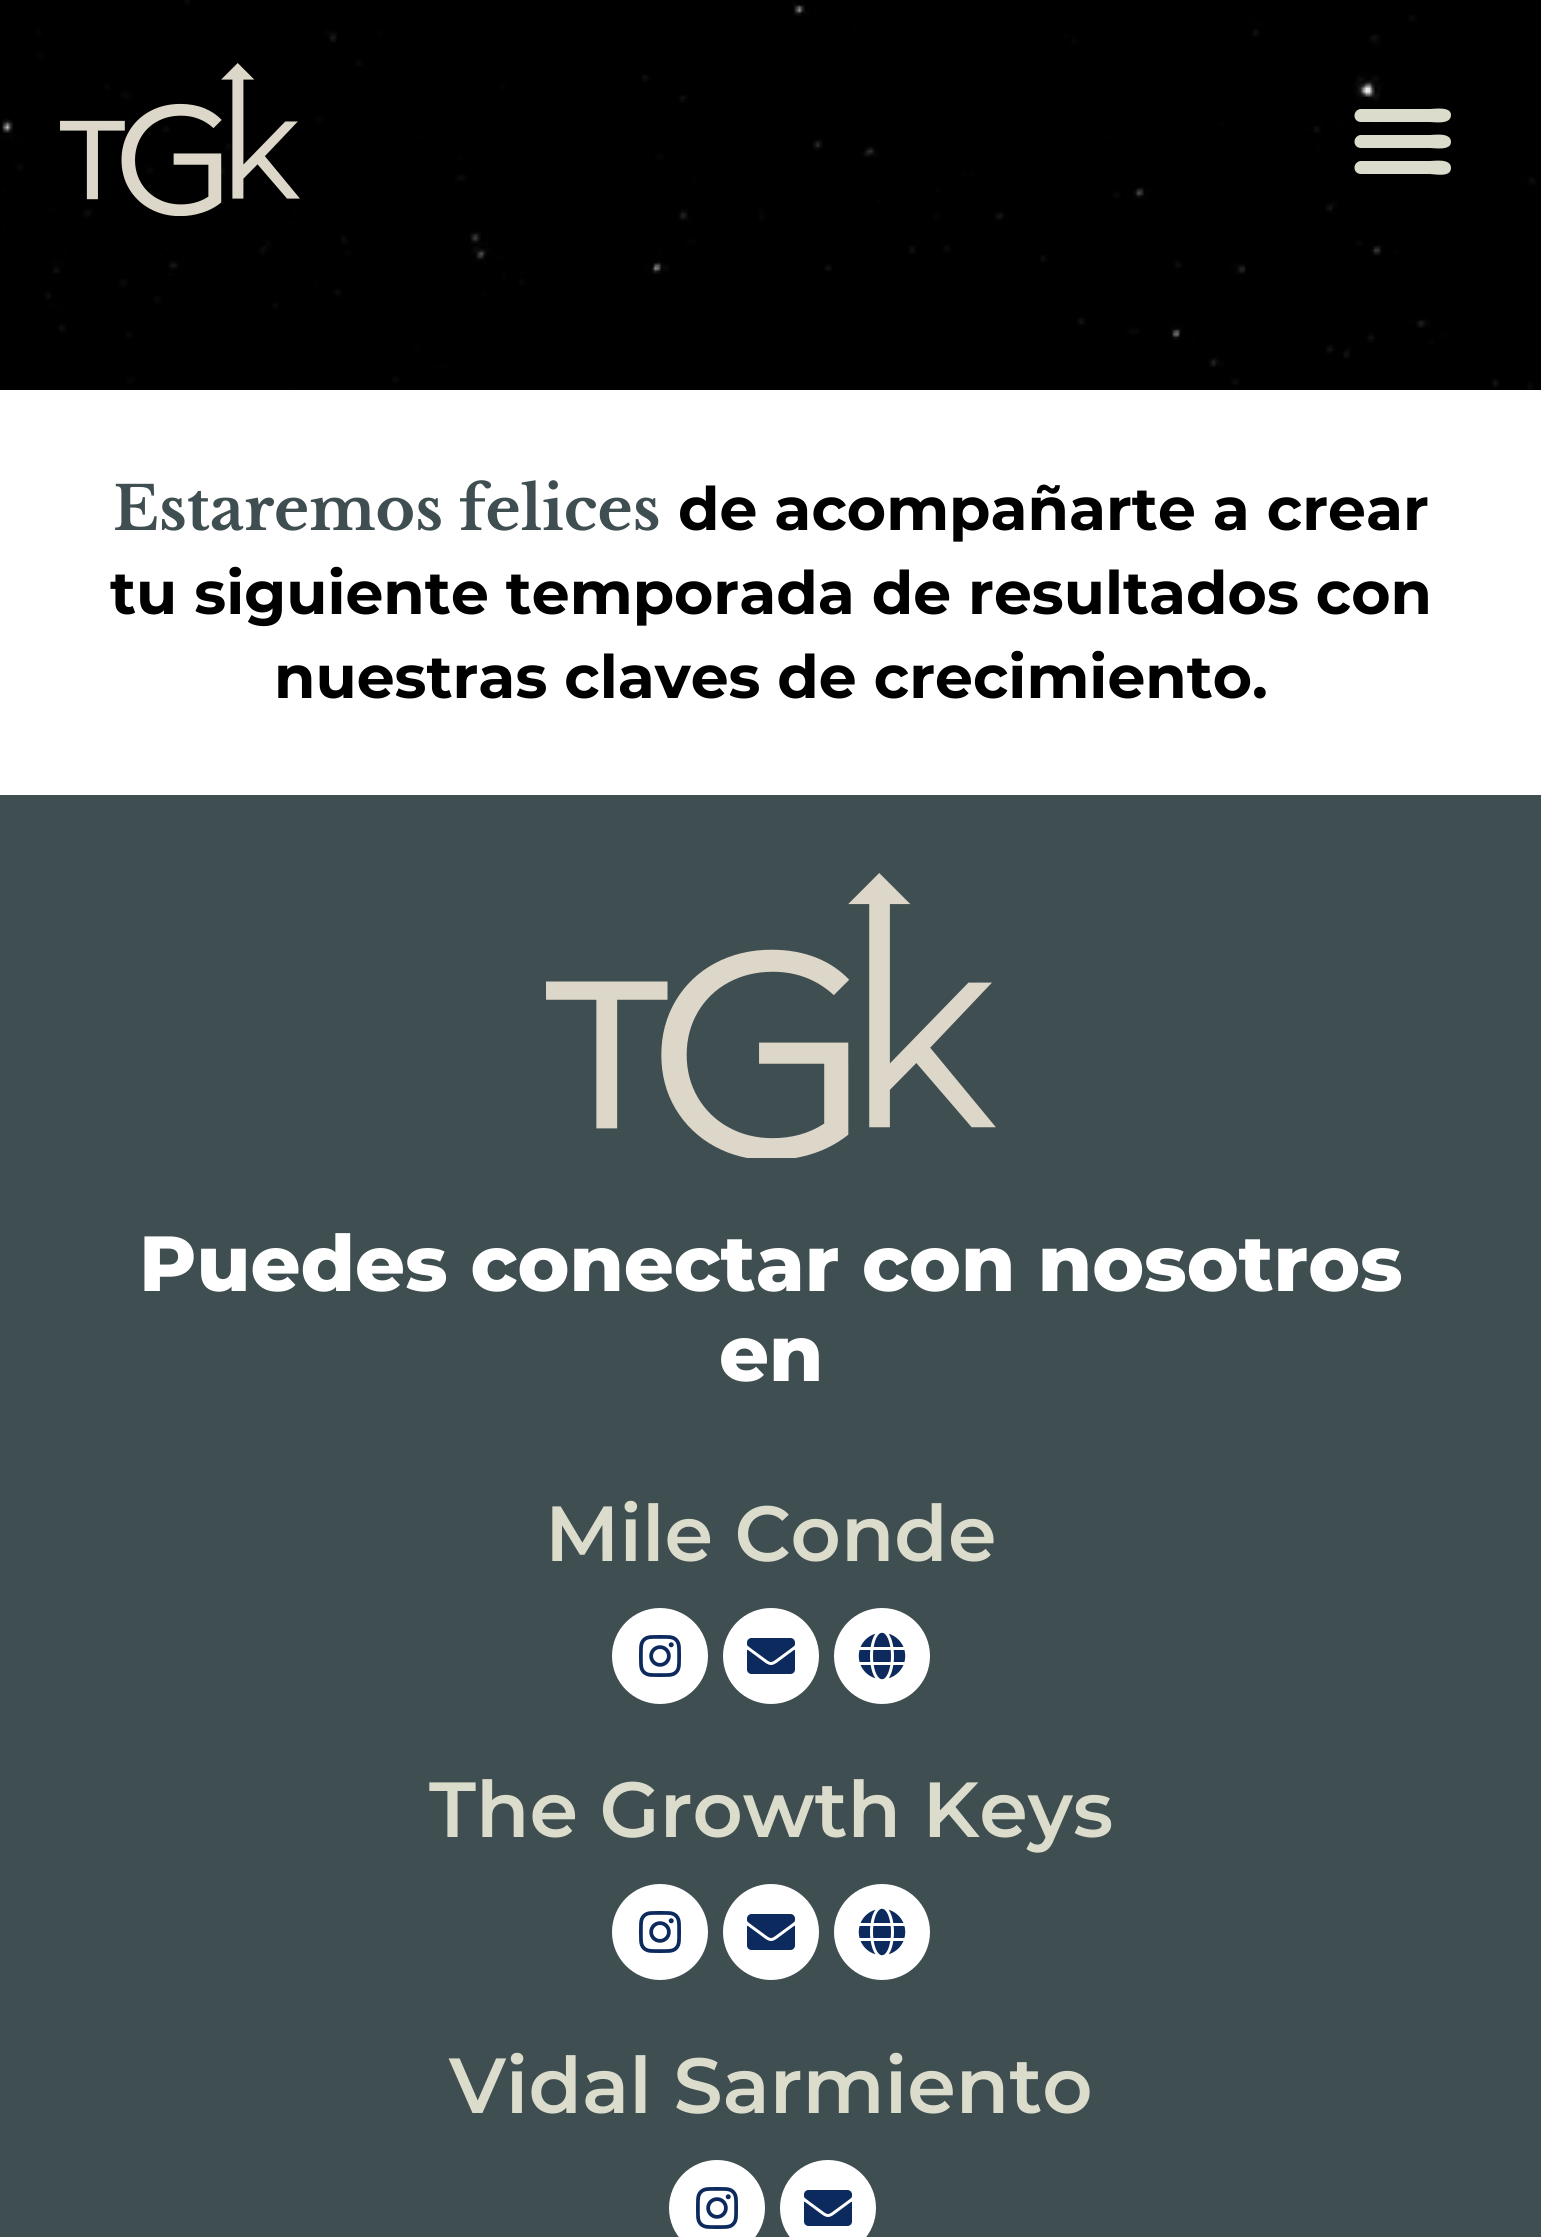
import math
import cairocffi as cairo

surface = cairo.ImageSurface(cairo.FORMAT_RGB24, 1541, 2237)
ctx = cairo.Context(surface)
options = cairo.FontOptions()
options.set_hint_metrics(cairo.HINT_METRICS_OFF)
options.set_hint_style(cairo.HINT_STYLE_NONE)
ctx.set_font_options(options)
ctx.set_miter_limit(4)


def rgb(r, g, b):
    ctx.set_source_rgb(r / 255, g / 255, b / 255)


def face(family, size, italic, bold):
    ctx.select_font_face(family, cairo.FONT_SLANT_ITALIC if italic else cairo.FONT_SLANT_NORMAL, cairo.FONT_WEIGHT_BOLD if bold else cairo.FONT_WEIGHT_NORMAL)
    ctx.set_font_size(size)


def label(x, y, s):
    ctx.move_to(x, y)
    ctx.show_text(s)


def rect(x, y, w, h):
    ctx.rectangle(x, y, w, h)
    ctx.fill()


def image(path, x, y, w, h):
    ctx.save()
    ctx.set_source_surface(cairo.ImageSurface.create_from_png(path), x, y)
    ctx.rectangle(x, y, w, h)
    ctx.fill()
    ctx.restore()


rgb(0, 0, 0)
ctx.paint()
image('image0.png', 2, 0, 1534, 390)
image('image1.png', 60, 63, 240, 153)
ctx.set_source_rgba(0, 0, 0, 0.05)
rect(1361, 83, 13, 14)
rgb(220, 220, 204)
ctx.new_path()
ctx.move_to(1361, 122)
ctx.line_to(1430, 122)
ctx.curve_to(1434, 122, 1451, 125, 1451, 115)
ctx.curve_to(1451, 106, 1434, 109, 1430, 109)
ctx.line_to(1360, 109)
ctx.curve_to(1352, 111, 1353, 122, 1361, 122)
ctx.close_path()
ctx.move_to(1361, 148)
ctx.line_to(1430, 148)
ctx.curve_to(1434, 148, 1451, 151, 1451, 142)
ctx.curve_to(1451, 132, 1434, 135, 1430, 135)
ctx.line_to(1360, 135)
ctx.curve_to(1352, 137, 1353, 148, 1361, 148)
ctx.close_path()
ctx.move_to(1361, 174)
ctx.line_to(1430, 174)
ctx.curve_to(1434, 174, 1451, 178, 1451, 168)
ctx.curve_to(1451, 158, 1434, 161, 1430, 161)
ctx.line_to(1360, 161)
ctx.curve_to(1352, 163, 1353, 174, 1361, 174)
ctx.close_path()
ctx.fill()
rgb(255, 255, 255)
rect(0, 390, 1541, 405)
face('Libre Baskerville', 60, 0, 1)
rgb(63, 78, 81)
label(113, 530, 'Estaremos felices')
face('Montserrat', 60, 0, 1)
rgb(0, 0, 0)
label(678, 530, 'de acompañarte a crear')
label(110, 614, 'tu siguiente temporada de resultados con')
label(274, 698, 'nuestras claves de crecimiento.')
rgb(63, 78, 81)
rect(0, 795, 1541, 1442)
image('image2.png', 546, 873, 450, 285)
face('Montserrat ExtraBold', 78, 0, 0)
rgb(255, 255, 255)
label(139, 1291, 'Puedes conectar con nosotros')
label(719, 1381, 'en')
face('Montserrat SemiBold', 78, 0, 0)
rgb(220, 220, 204)
label(545, 1561, 'Mile Conde')
rgb(255, 255, 255)
ctx.new_path()
ctx.arc(660, 1656, 48, 0, 2 * math.pi)
ctx.fill()
image('image3.png', 639, 1635, 42, 42)
ctx.arc(771, 1656, 48, 0, 2 * math.pi)
ctx.fill()
image('image4.png', 747, 1638, 48, 36)
ctx.arc(882, 1656, 48, 0, 2 * math.pi)
ctx.fill()
image('image5.png', 858, 1632, 48, 48)
rgb(220, 220, 204)
label(429, 1837, 'The Growth Keys')
rgb(255, 255, 255)
ctx.new_path()
ctx.arc(660, 1932, 48, 0, 2 * math.pi)
ctx.fill()
image('image3.png', 639, 1911, 42, 42)
ctx.arc(771, 1932, 48, 0, 2 * math.pi)
ctx.fill()
image('image4.png', 747, 1914, 48, 36)
ctx.arc(882, 1932, 48, 0, 2 * math.pi)
ctx.fill()
image('image5.png', 858, 1908, 48, 48)
rgb(220, 220, 204)
label(449, 2113, 'Vidal Sarmiento')
rgb(255, 255, 255)
ctx.new_path()
ctx.arc(717, 2208, 48, 0, 2 * math.pi)
ctx.fill()
image('image3.png', 696, 2187, 42, 42)
ctx.arc(828, 2208, 48, 0, 2 * math.pi)
ctx.fill()
image('image4.png', 804, 2190, 48, 36)
surface.write_to_png('render.png')
